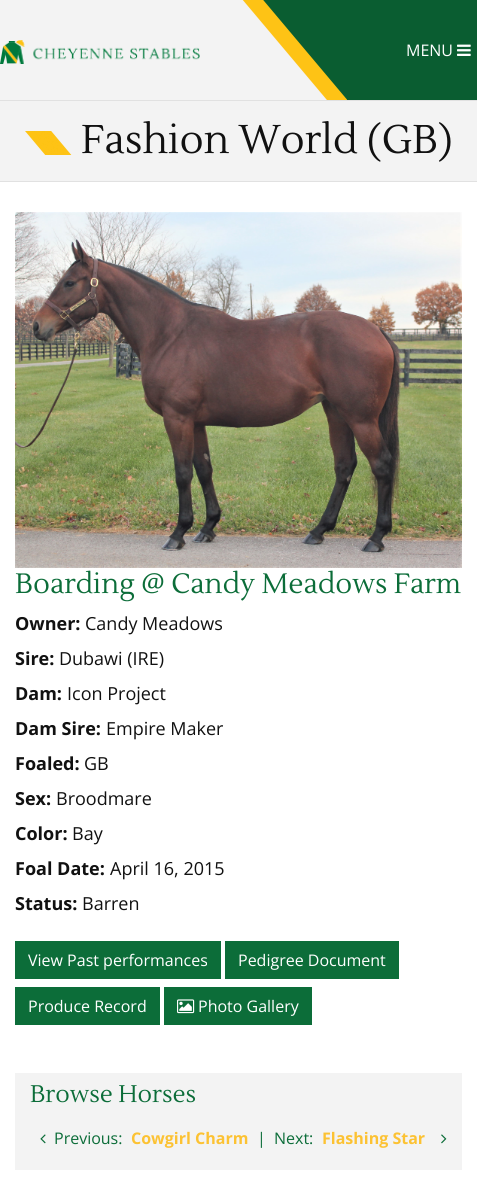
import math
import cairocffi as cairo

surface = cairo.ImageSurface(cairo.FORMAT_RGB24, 477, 1186)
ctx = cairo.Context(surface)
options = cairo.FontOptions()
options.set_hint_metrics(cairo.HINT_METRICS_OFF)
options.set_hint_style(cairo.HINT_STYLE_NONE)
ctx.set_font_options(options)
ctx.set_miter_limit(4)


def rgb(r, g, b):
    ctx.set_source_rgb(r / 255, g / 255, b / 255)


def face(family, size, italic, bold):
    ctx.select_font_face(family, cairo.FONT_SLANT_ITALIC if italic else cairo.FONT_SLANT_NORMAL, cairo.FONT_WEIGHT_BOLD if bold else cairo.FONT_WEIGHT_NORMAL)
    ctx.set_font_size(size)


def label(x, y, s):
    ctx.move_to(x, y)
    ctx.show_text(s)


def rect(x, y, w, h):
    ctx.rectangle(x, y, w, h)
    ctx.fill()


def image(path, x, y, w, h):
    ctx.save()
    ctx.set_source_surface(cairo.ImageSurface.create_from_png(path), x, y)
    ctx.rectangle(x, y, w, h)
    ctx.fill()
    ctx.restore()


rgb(255, 255, 255)
ctx.paint()
rgb(243, 243, 243)
rect(0, 0, 239, 100)
rgb(10, 93, 49)
rect(263, 0, 214, 100)
image('image0.png', 239, 0, 108, 100)
image('image1.png', 0, 40, 200, 24)
face('Open Sans', 16, 0, 0)
rgb(255, 255, 255)
label(406, 56, 'MENU')
image('image2.png', 457, 44, 14, 12)
rgb(243, 243, 243)
rect(0, 101, 477, 80)
rgb(225, 225, 225)
rect(0, 100, 477, 1)
rect(0, 181, 477, 1)
image('image3.png', 25, 131, 47, 24)
face('Lustria', 40, 0, 0)
rgb(17, 17, 17)
label(81, 153, 'Fashion World (GB)')
image('image4.png', 15, 212, 447, 356)
face('Lustria', 28, 0, 0)
rgb(12, 109, 57)
label(15, 593, 'Boarding @ Candy Meadows Farm')
face('Open Sans', 18, 0, 1)
rgb(17, 17, 17)
label(15, 630, 'Owner:')
face('Open Sans', 18, 0, 0)
label(85, 630, 'Candy Meadows')
face('Open Sans', 18, 0, 1)
label(15, 665, 'Sire:')
face('Open Sans', 18, 0, 0)
label(59, 665, 'Dubawi (IRE)')
face('Open Sans', 18, 0, 1)
label(15, 700, 'Dam:')
face('Open Sans', 18, 0, 0)
label(67, 700, 'Icon Project')
face('Open Sans', 18, 0, 1)
label(15, 735, 'Dam Sire:')
face('Open Sans', 18, 0, 0)
label(106, 735, 'Empire Maker')
face('Open Sans', 18, 0, 1)
label(15, 770, 'Foaled:')
face('Open Sans', 18, 0, 0)
label(84, 770, 'GB')
face('Open Sans', 18, 0, 1)
label(15, 805, 'Sex:')
face('Open Sans', 18, 0, 0)
label(56, 805, 'Broodmare')
face('Open Sans', 18, 0, 1)
label(15, 840, 'Color:')
face('Open Sans', 18, 0, 0)
label(72, 840, 'Bay')
face('Open Sans', 18, 0, 1)
label(15, 875, 'Foal Date:')
face('Open Sans', 18, 0, 0)
label(110, 875, 'April 16, 2015')
face('Open Sans', 18, 0, 1)
label(15, 910, 'Status:')
face('Open Sans', 18, 0, 0)
label(82, 910, 'Barren')
rgb(12, 109, 57)
rect(15, 941, 206, 38)
face('Open Sans', 16, 0, 0)
rgb(255, 255, 255)
label(28, 966, 'View Past performances')
rgb(12, 109, 57)
rect(225, 941, 174, 38)
rgb(255, 255, 255)
label(238, 966, 'Pedigree Document')
rgb(12, 109, 57)
rect(15, 987, 145, 38)
rgb(255, 255, 255)
label(28, 1012, 'Produce Record')
rgb(12, 109, 57)
rect(164, 987, 148, 38)
image('image5.png', 177, 999, 18, 15)
rgb(255, 255, 255)
label(198, 1012, 'Photo Gallery')
rgb(243, 243, 243)
rect(15, 1073, 447, 97)
face('Lustria', 24, 0, 0)
rgb(12, 109, 57)
label(30, 1102, 'Browse Horses')
image('image6.png', 40, 1134, 6, 10)
face('Open Sans', 16, 0, 0)
label(54, 1144, 'Previous:')
face('Open Sans', 16, 0, 1)
rgb(252, 194, 51)
label(131, 1144, 'Cowgirl Charm')
face('Open Sans', 16, 0, 0)
rgb(12, 109, 57)
label(257, 1144, '|')
label(274, 1144, 'Next:')
face('Open Sans', 16, 0, 1)
rgb(252, 194, 51)
label(322, 1144, 'Flashing Star')
image('image7.png', 441, 1134, 6, 10)
surface.write_to_png('render.png')
